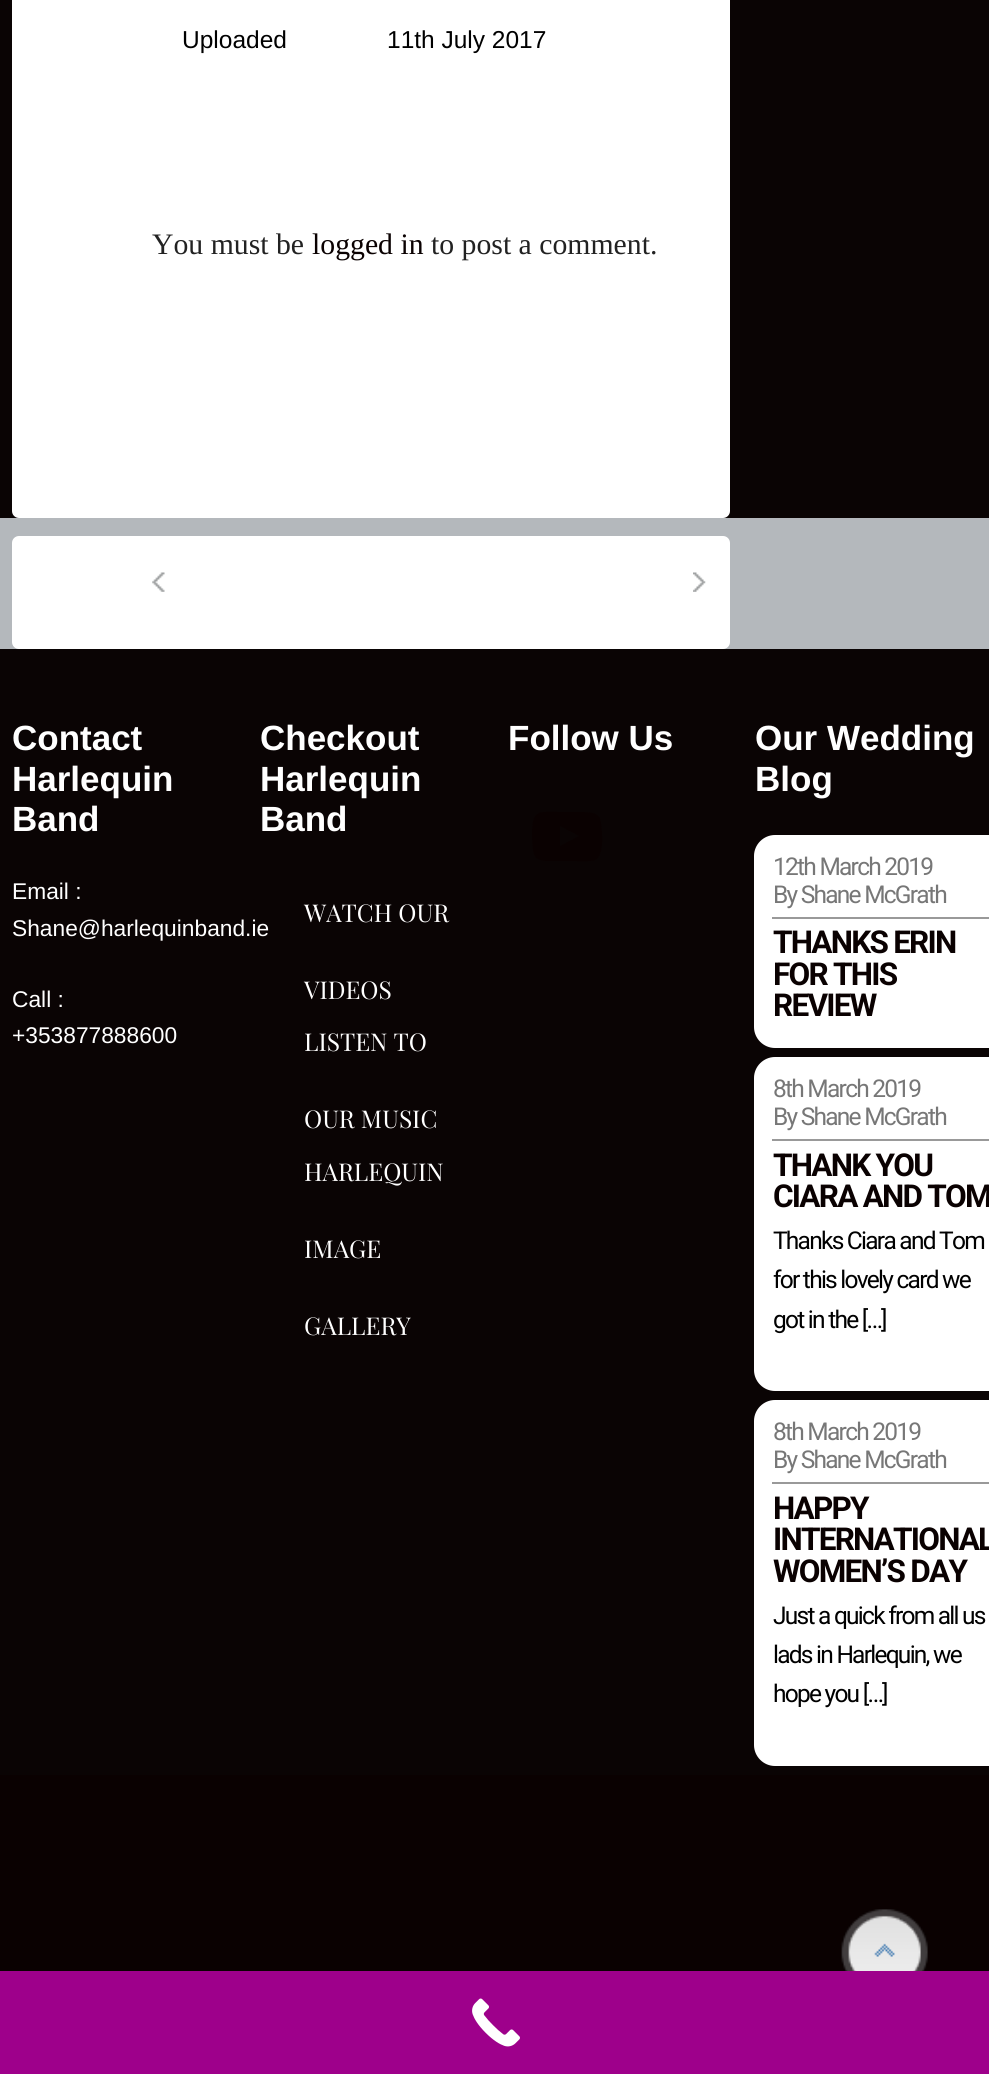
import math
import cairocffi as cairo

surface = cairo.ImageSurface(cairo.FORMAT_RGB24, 989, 2074)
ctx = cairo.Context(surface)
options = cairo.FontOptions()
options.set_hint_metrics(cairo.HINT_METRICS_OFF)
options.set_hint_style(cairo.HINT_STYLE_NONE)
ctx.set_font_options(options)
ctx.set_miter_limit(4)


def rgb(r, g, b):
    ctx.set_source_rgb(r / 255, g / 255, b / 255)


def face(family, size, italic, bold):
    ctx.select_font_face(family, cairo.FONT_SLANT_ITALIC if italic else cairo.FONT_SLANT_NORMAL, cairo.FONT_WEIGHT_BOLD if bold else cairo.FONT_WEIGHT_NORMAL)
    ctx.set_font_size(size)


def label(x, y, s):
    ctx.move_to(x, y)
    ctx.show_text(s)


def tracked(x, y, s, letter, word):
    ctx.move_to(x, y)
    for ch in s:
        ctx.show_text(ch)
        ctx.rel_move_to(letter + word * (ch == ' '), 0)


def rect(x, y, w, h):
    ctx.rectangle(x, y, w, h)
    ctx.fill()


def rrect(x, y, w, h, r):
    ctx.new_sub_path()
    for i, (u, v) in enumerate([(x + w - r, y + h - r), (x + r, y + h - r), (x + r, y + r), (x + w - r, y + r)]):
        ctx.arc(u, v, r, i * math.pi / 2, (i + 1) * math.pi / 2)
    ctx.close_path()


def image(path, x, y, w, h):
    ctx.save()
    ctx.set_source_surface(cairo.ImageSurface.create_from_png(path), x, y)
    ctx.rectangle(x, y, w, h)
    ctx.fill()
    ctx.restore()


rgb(10, 4, 4)
ctx.paint()
rgb(255, 255, 255)
rrect(12, -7, 718, 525, 7)
ctx.fill()
face('Liberation Sans', 24.5, 0, 0)
rgb(0, 0, 0)
label(182, 48, 'Uploaded')
label(387, 48, '11th July 2017')
face('Liberation Serif', 29.75, 0, 0)
rgb(34, 34, 34)
label(152, 254, 'You must be')
rgb(10, 1, 1)
label(312, 254, 'logged in')
rgb(34, 34, 34)
label(431, 254, 'to post a comment.')
rgb(180, 184, 188)
rect(0, 518, 989, 131)
rgb(255, 255, 255)
rrect(12, 536, 718, 113, 7)
ctx.fill()
image('image0.png', 152, 572, 13, 20)
image('image1.png', 693, 572, 13, 20)
face('Liberation Sans', 35, 0, 1)
label(12, 750, 'Contact')
label(12, 791, 'Harlequin')
label(12, 831, 'Band')
face('Liberation Sans', 22.75, 0, 0)
label(12, 899, 'Email :')
label(12, 936, 'Shane@harlequinband.ie')
label(12, 1007, 'Call :')
label(12, 1043, '+353877888600')
face('Liberation Sans', 35, 0, 1)
label(260, 750, 'Checkout')
label(260, 791, 'Harlequin')
label(260, 831, 'Band')
face('Playfair Display', 24.5, 0, 0)
label(304, 922, 'WATCH OUR')
label(304, 999, 'VIDEOS')
label(304, 1051, 'LISTEN TO')
label(304, 1128, 'OUR MUSIC')
label(304, 1181, 'HARLEQUIN')
label(304, 1258, 'IMAGE')
label(304, 1335, 'GALLERY')
face('Liberation Sans', 35, 0, 1)
label(508, 750, 'Follow Us')
rgb(10, 1, 1)
ctx.new_path()
ctx.move_to(601, 823)
ctx.curve_to(600, 812, 592, 813, 584, 812)
ctx.line_to(562, 812)
ctx.curve_to(556, 812, 544, 811, 539, 813)
ctx.curve_to(537, 814, 535, 816, 534, 818)
ctx.curve_to(531, 825, 532, 843, 533, 850)
ctx.curve_to(534, 862, 544, 861, 553, 861)
ctx.line_to(572, 861)
ctx.curve_to(578, 861, 590, 862, 595, 860)
ctx.curve_to(605, 856, 602, 830, 601, 823)
ctx.close_path()
ctx.move_to(560, 846)
ctx.line_to(560, 826)
ctx.line_to(579, 836)
ctx.close_path()
ctx.fill()
rgb(255, 255, 255)
label(755, 750, 'Our Wedding')
label(755, 791, 'Blog')
ctx.new_path()
ctx.move_to(775, 835)
ctx.line_to(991, 835)
ctx.line_to(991, 1048)
ctx.line_to(775, 1048)
ctx.curve_to(763.5, 1048, 754, 1038.5, 754, 1027)
ctx.line_to(754, 856)
ctx.curve_to(754, 844.5, 763.5, 835, 775, 835)
ctx.close_path()
ctx.fill()
face('Roboto', 24.5, 0, 0)
rgb(119, 119, 119)
tracked(773, 875, '12th March 2019', -1.75, 0)
tracked(773, 903, 'By Shane McGrath', -1.75, 0)
rgb(153, 153, 153)
rect(772, 917, 217, 2)
face('Roboto', 31.5, 0, 1)
rgb(10, 1, 1)
tracked(773, 953, 'THANKS ERIN', -1.75, 0)
tracked(773, 985, 'FOR THIS', -1.75, 0)
tracked(773, 1016, 'REVIEW', -1.75, 0)
rgb(255, 255, 255)
ctx.new_path()
ctx.move_to(775, 1057)
ctx.line_to(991, 1057)
ctx.line_to(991, 1391)
ctx.line_to(775, 1391)
ctx.curve_to(763.5, 1391, 754, 1381.5, 754, 1370)
ctx.line_to(754, 1078)
ctx.curve_to(754, 1066.5, 763.5, 1057, 775, 1057)
ctx.close_path()
ctx.fill()
face('Roboto', 24.5, 0, 0)
rgb(119, 119, 119)
tracked(773, 1097, '8th March 2019', -1.75, 0)
tracked(773, 1125, 'By Shane McGrath', -1.75, 0)
rgb(153, 153, 153)
rect(772, 1139, 217, 2)
face('Roboto', 31.5, 0, 1)
rgb(10, 1, 1)
tracked(773, 1176, 'THANK YOU', -1.75, 0)
tracked(773, 1207, 'CIARA AND TOM', -1.75, 0)
face('Roboto', 24.5, 0, 0)
rgb(0, 0, 0)
tracked(773, 1249, 'Thanks Ciara and Tom', -1.75, 0)
tracked(773, 1288, 'for this lovely card we', -1.75, 0)
tracked(773, 1328, 'got in the […]', -1.75, 0)
rgb(255, 255, 255)
ctx.new_path()
ctx.move_to(775, 1400)
ctx.line_to(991, 1400)
ctx.line_to(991, 1766)
ctx.line_to(775, 1766)
ctx.curve_to(763.5, 1766, 754, 1756.5, 754, 1745)
ctx.line_to(754, 1421)
ctx.curve_to(754, 1409.5, 763.5, 1400, 775, 1400)
ctx.close_path()
ctx.fill()
rgb(119, 119, 119)
tracked(773, 1440, '8th March 2019', -1.75, 0)
tracked(773, 1468, 'By Shane McGrath', -1.75, 0)
rgb(153, 153, 153)
rect(772, 1482, 217, 2)
face('Roboto', 31.5, 0, 1)
rgb(10, 1, 1)
tracked(773, 1519, 'HAPPY', -1.75, 0)
tracked(773, 1550, 'INTERNATIONAL', -1.75, 0)
tracked(773, 1582, 'WOMEN’S DAY', -1.75, 0)
face('Roboto', 24.5, 0, 0)
rgb(0, 0, 0)
tracked(773, 1624, 'Just a quick from all us', -1.75, 0)
tracked(773, 1663, 'lads in Harlequin, we', -1.75, 0)
tracked(773, 1702, 'hope you […]', -1.75, 0)
rgb(10, 1, 1)
rect(0, 1775, 989, 196)
image('image2.png', 841, 1909, 87, 62)
rgb(158, 0, 139)
rect(0, 1971, 989, 103)
image('image3.png', 472, 1998, 48, 49)
surface.write_to_png('render.png')
